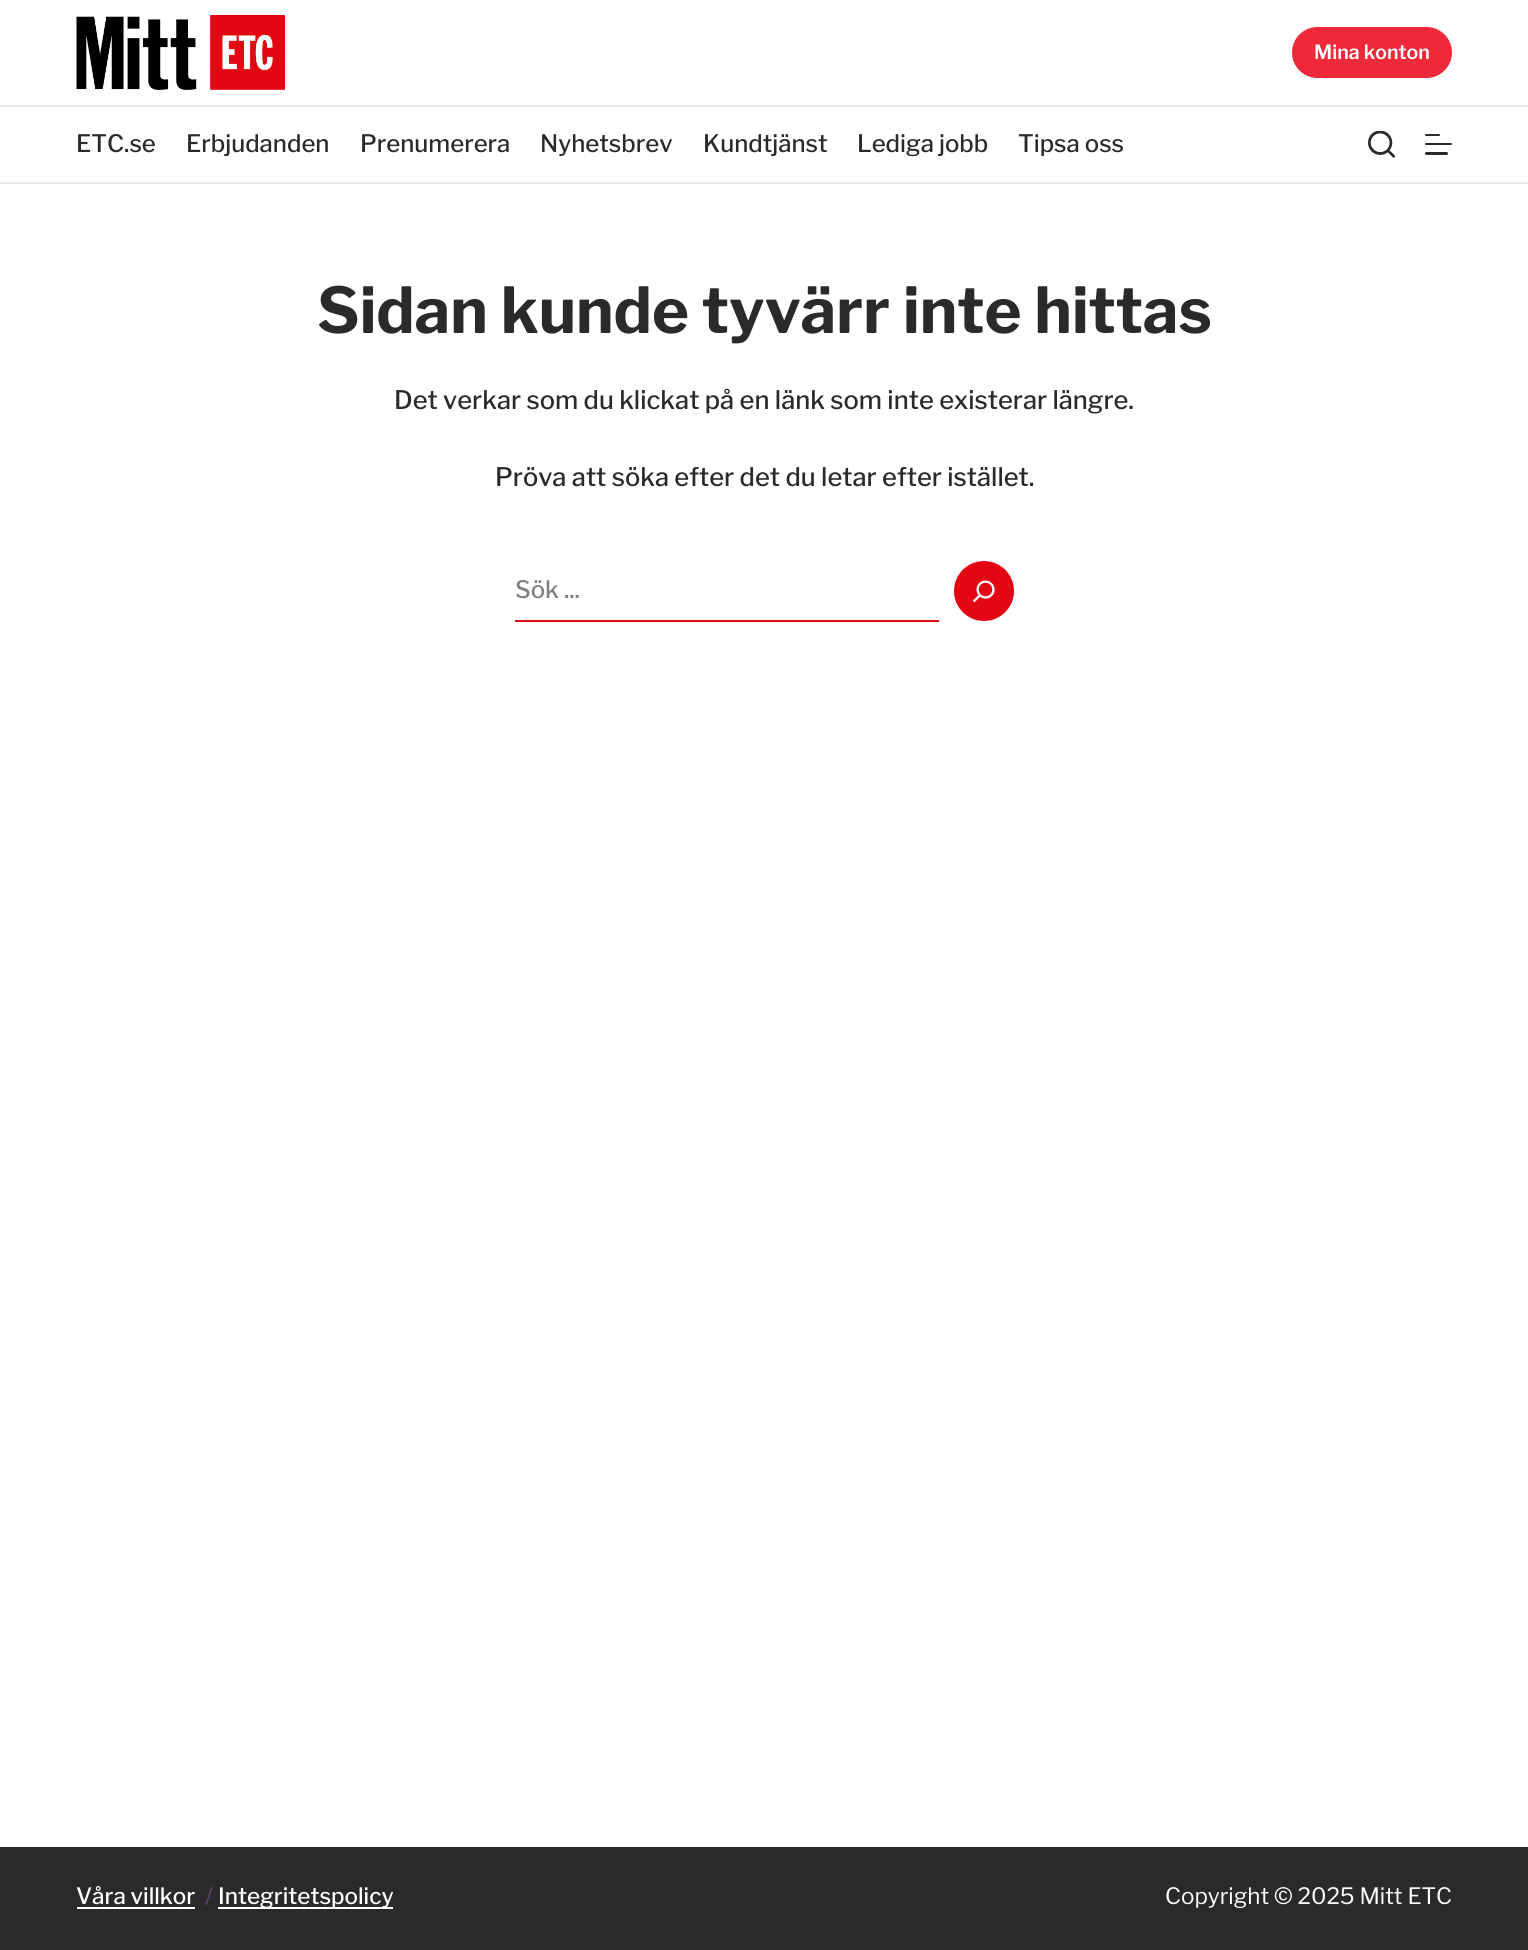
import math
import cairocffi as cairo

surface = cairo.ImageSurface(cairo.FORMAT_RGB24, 1528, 1950)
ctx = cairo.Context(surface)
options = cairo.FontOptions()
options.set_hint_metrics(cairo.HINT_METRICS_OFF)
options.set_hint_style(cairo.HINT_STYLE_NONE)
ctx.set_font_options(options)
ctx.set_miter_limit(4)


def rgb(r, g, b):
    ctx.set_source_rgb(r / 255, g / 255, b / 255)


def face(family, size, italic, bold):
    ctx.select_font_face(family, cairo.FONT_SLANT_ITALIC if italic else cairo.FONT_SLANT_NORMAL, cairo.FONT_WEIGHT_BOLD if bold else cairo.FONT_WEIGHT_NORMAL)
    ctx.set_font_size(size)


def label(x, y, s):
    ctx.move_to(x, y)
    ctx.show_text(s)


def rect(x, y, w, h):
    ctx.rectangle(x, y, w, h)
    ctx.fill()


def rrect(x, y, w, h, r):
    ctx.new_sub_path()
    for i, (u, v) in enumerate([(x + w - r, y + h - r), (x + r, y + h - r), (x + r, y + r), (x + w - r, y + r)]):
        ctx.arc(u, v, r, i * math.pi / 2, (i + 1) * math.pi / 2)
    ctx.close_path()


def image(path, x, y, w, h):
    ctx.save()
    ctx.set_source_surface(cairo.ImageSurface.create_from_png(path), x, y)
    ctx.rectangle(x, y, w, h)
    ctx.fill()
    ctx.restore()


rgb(255, 255, 255)
ctx.paint()
rgb(232, 232, 232)
rect(0, 105, 1528, 2)
image('image0.png', 76, 15, 209, 75)
rgb(238, 41, 57)
rrect(1292, 27, 160, 51, 25.5)
ctx.fill()
face('Libre Franklin SemiBold', 19.5, 0, 0)
rgb(255, 255, 255)
label(1314, 59, 'Mina konton')
rgb(232, 232, 232)
rect(0, 182, 1528, 2)
face('Libre Franklin Medium', 24, 0, 0)
rgb(42, 42, 42)
label(76, 152, 'ETC.se')
label(186, 152, 'Erbjudanden')
label(360, 152, 'Prenumerera')
label(540, 152, 'Nyhetsbrev')
label(703, 152, 'Kundtjänst')
label(857, 152, 'Lediga jobb')
label(1018, 152, 'Tipsa oss')
image('image1.png', 1368, 131, 27, 27)
rrect(1425, 134, 15, 2, 1)
ctx.fill()
rrect(1425, 143, 27, 2, 1)
ctx.fill()
rrect(1425, 152, 23, 3, 1.5)
ctx.fill()
face('Libre Franklin', 63, 0, 1)
label(317, 333, 'Sidan kunde tyvärr inte hittas')
face('Libre Franklin Medium', 25.5, 0, 0)
label(394, 409, 'Det verkar som du klickat på en länk som inte existerar längre.')
label(495, 486, 'Pröva att söka efter det du letar efter istället.')
rgb(227, 7, 19)
rect(515, 620, 424, 2)
face('Libre Franklin Medium', 24, 0, 0)
rgb(127, 127, 127)
label(515, 598, 'Sök ...')
rgb(227, 7, 19)
ctx.new_path()
ctx.arc(984, 591, 30, 0, 2 * math.pi)
ctx.fill()
image('image2.png', 972, 580, 23, 23)
rgb(42, 42, 42)
rect(0, 1847, 1528, 103)
face('Libre Franklin Medium', 22.5, 0, 0)
rgb(255, 255, 255)
label(76, 1904, 'Våra villkor')
rect(77, 1907, 118, 2)
rgb(99, 61, 109)
label(205, 1904, '/')
rgb(255, 255, 255)
rect(218, 1907, 175, 2)
label(218, 1904, 'Integritetspolicy')
face('Libre Franklin', 22.5, 0, 0)
label(1165, 1904, 'Copyright © 2025 Mitt ETC')
surface.write_to_png('render.png')
